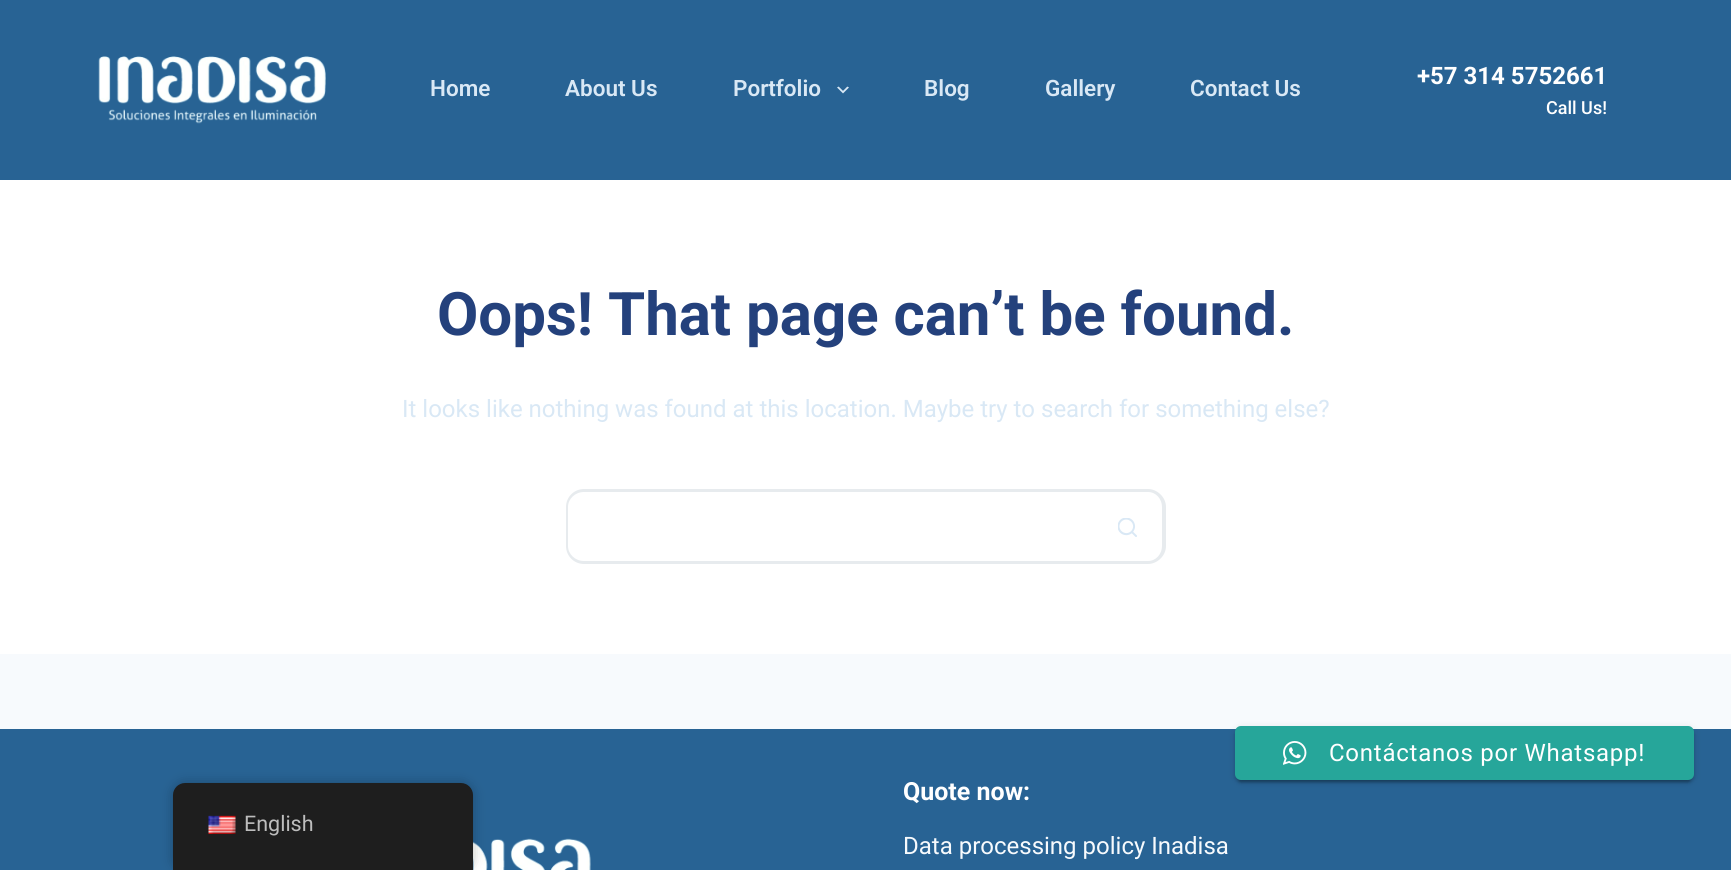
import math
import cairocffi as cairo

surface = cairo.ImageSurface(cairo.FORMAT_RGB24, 1731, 870)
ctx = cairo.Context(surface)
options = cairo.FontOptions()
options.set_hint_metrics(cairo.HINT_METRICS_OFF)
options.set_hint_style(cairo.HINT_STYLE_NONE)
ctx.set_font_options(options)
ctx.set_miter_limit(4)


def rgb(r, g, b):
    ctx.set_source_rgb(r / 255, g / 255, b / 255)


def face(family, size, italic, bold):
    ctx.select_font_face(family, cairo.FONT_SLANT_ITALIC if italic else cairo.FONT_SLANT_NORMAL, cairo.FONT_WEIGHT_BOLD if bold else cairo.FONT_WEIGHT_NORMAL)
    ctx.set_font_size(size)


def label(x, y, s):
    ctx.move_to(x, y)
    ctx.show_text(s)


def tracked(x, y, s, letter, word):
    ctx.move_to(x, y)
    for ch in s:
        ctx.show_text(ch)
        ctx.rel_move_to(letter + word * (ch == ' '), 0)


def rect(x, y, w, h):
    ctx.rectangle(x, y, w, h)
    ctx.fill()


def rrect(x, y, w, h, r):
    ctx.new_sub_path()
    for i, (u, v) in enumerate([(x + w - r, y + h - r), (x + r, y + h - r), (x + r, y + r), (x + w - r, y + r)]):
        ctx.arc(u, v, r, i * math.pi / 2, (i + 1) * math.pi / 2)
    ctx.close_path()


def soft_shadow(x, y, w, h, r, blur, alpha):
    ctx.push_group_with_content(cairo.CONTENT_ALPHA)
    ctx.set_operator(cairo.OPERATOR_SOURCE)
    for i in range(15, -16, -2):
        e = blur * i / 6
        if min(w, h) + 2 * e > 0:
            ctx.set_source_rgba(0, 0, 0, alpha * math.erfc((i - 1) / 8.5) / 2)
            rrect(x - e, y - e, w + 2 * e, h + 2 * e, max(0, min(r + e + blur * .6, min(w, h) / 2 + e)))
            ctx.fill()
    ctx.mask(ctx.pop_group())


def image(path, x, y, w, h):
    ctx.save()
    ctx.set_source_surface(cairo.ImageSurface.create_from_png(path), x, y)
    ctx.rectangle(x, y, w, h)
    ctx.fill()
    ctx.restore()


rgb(255, 255, 255)
ctx.paint()
rgb(40, 99, 148)
rect(0, 0, 1731, 180)
image('image0.png', 98, 56, 228, 68)
face('Roboto SemiBold', 22.5, 0, 0)
rgb(217, 232, 245)
label(430, 96, 'Home')
label(565, 96, 'About Us')
label(733, 96, 'Portfolio')
image('image1.png', 837, 86, 12, 8)
label(924, 96, 'Blog')
label(1045, 96, 'Gallery')
label(1190, 96, 'Contact Us')
face('Roboto', 24, 0, 1)
rgb(255, 255, 255)
label(1417, 84, '+57 314 5752661')
face('Roboto Medium', 18, 0, 0)
label(1546, 114, 'Call Us!')
face('Roboto', 60, 0, 1)
rgb(36, 65, 124)
label(437, 335, 'Oops! That page can’t be found.')
face('Roboto', 24, 0, 0)
rgb(217, 232, 245)
label(402, 417, 'It looks like nothing was found at this location. Maybe try to search for something else?')
rgb(231, 235, 238)
ctx.set_fill_rule(cairo.FILL_RULE_EVEN_ODD)
ctx.new_path()
ctx.move_to(584, 489)
ctx.line_to(1090, 489)
ctx.line_to(1090, 564)
ctx.line_to(584, 564)
ctx.curve_to(574, 564, 566, 556, 566, 546)
ctx.line_to(566, 507)
ctx.curve_to(566, 497, 574, 489, 584, 489)
ctx.close_path()
ctx.move_to(584, 492)
ctx.line_to(1090, 492)
ctx.line_to(1090, 561)
ctx.line_to(584, 561)
ctx.curve_to(575, 561, 568, 554, 568, 546)
ctx.line_to(568, 507)
ctx.curve_to(568, 499, 575, 492, 584, 492)
ctx.close_path()
ctx.fill()
ctx.new_path()
ctx.move_to(1090, 489)
ctx.line_to(1148, 489)
ctx.curve_to(1157, 489, 1166, 497, 1166, 507)
ctx.line_to(1166, 546)
ctx.curve_to(1166, 556, 1157, 564, 1148, 564)
ctx.line_to(1090, 564)
ctx.close_path()
ctx.move_to(1090, 492)
ctx.line_to(1148, 492)
ctx.curve_to(1156, 492, 1162, 499, 1162, 507)
ctx.line_to(1162, 546)
ctx.curve_to(1162, 554, 1156, 561, 1148, 561)
ctx.line_to(1090, 561)
ctx.close_path()
ctx.fill()
image('image2.png', 1118, 518, 19, 19)
rgb(247, 250, 253)
rect(0, 654, 1731, 75)
rgb(40, 99, 148)
rect(0, 729, 1731, 141)
image('image3.png', 473, 838, 118, 32)
face('Roboto', 25, 0, 1)
rgb(255, 255, 255)
label(903, 800, 'Quote now:')
face('Roboto', 24, 0, 0)
rgb(247, 250, 253)
label(903, 854, 'Data processing policy Inadisa')
rgb(0, 0, 0)
soft_shadow(1238, 734, 453, 48, 3, 1, 0.2)
soft_shadow(1235, 728, 459, 54, 6, 4, 0.12)
soft_shadow(1235, 729, 459, 54, 6, 1.5, 0.14)
rgb(38, 166, 154)
rrect(1235, 726, 459, 54, 6)
ctx.fill()
image('image4.png', 1283, 741, 24, 24)
rgb(255, 255, 255)
tracked(1329, 761, 'Contáctanos por Whatsapp!', 0.75, 0)
rgb(0, 0, 0)
soft_shadow(173, 783, 300, 87, 12, 6, 0.25)
rgb(30, 30, 30)
ctx.new_path()
ctx.move_to(185, 783)
ctx.line_to(461, 783)
ctx.curve_to(467.5, 783, 473, 788.5, 473, 795)
ctx.line_to(473, 870)
ctx.line_to(173, 870)
ctx.line_to(173, 795)
ctx.curve_to(173, 788.5, 178.5, 783, 185, 783)
ctx.close_path()
ctx.fill()
image('image5.png', 208, 815, 28, 19)
face('Roboto', 21.5, 0, 0)
rgb(189, 189, 189)
label(244, 831, 'English')
surface.write_to_png('render.png')
